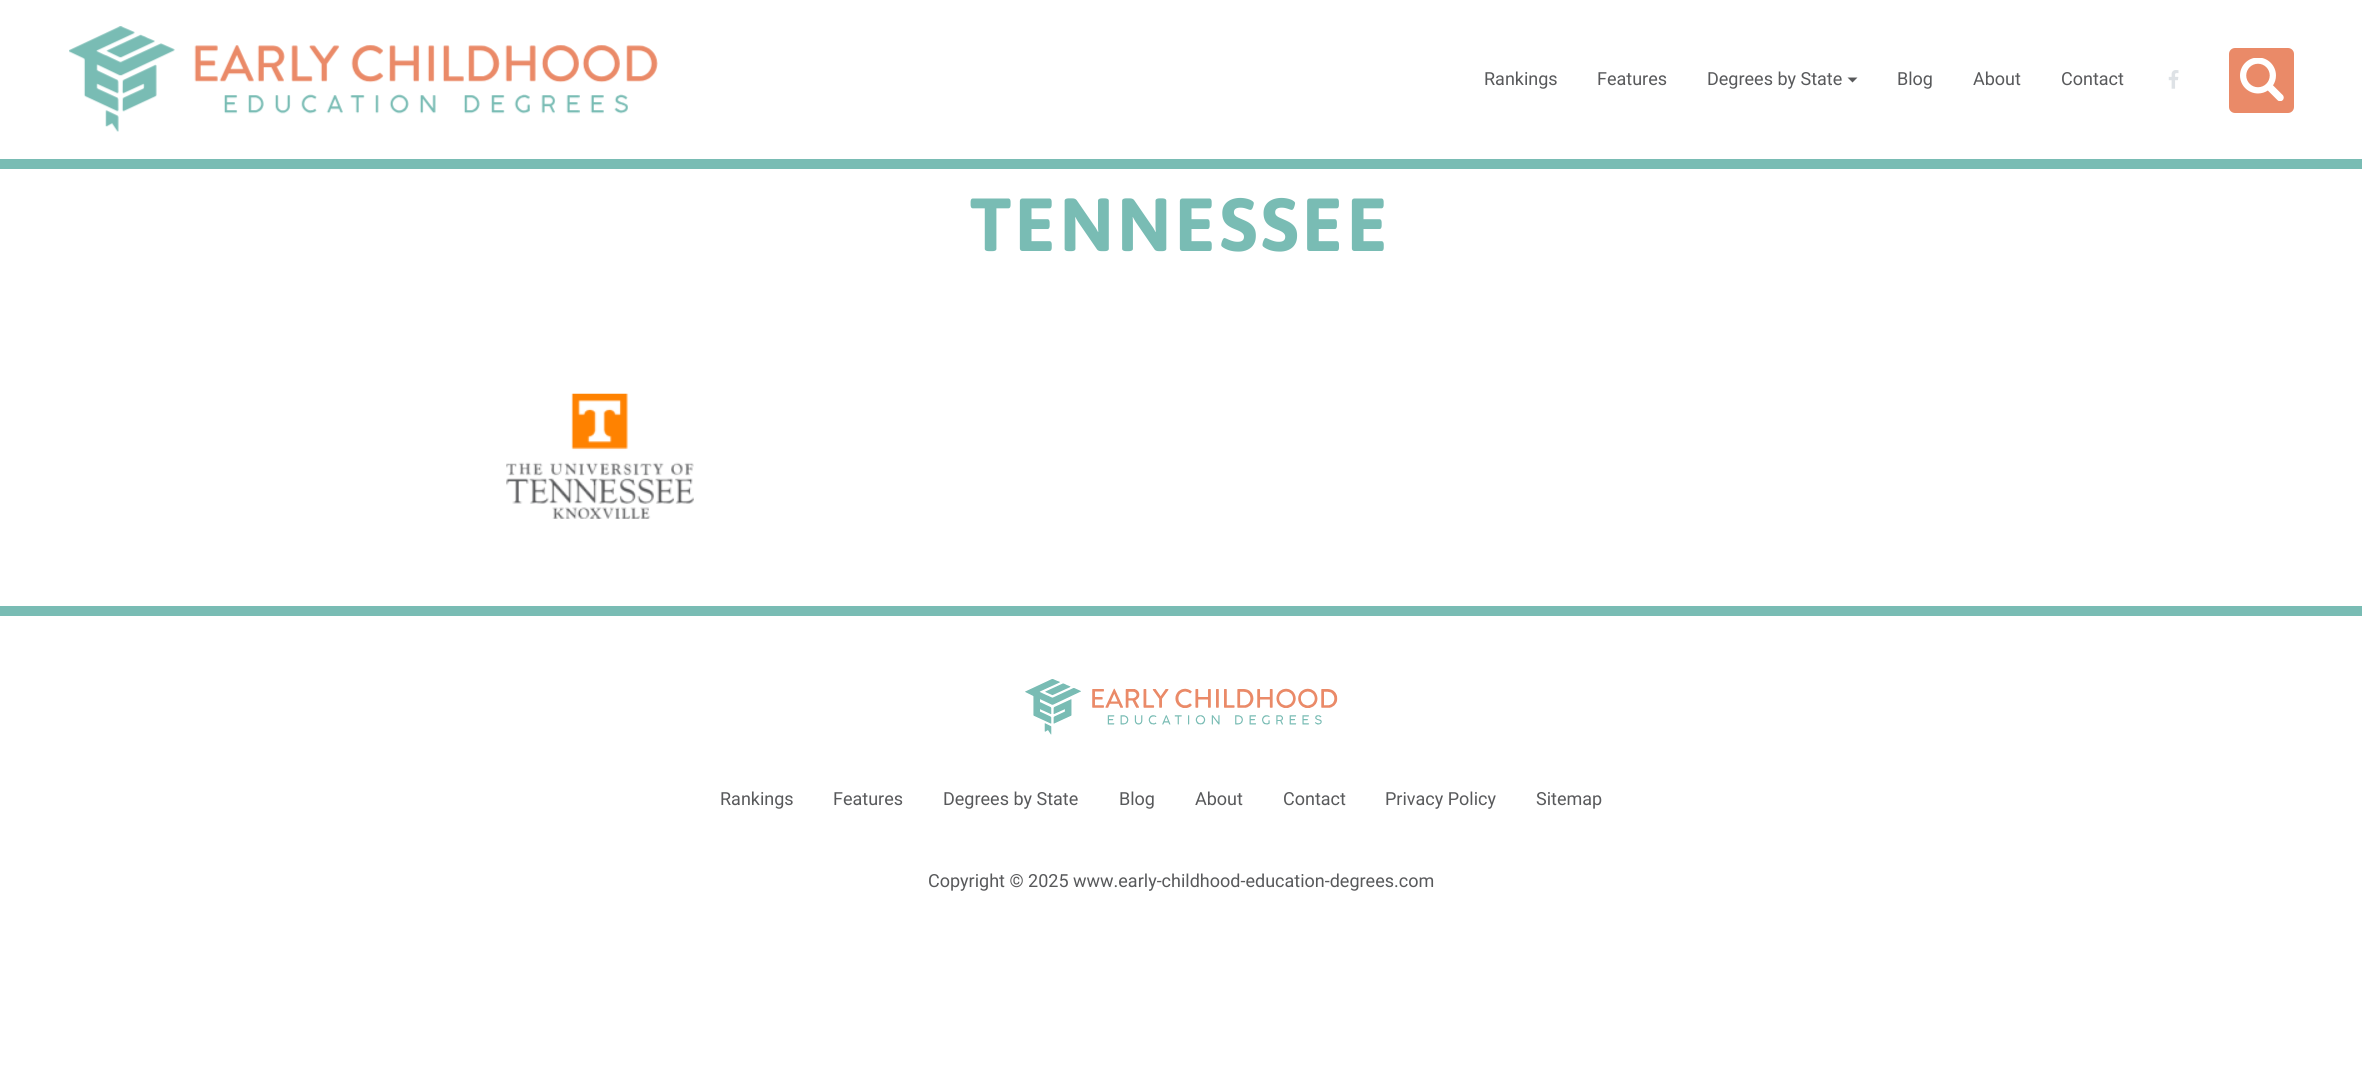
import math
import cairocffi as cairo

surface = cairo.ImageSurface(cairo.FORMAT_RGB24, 2362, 1088)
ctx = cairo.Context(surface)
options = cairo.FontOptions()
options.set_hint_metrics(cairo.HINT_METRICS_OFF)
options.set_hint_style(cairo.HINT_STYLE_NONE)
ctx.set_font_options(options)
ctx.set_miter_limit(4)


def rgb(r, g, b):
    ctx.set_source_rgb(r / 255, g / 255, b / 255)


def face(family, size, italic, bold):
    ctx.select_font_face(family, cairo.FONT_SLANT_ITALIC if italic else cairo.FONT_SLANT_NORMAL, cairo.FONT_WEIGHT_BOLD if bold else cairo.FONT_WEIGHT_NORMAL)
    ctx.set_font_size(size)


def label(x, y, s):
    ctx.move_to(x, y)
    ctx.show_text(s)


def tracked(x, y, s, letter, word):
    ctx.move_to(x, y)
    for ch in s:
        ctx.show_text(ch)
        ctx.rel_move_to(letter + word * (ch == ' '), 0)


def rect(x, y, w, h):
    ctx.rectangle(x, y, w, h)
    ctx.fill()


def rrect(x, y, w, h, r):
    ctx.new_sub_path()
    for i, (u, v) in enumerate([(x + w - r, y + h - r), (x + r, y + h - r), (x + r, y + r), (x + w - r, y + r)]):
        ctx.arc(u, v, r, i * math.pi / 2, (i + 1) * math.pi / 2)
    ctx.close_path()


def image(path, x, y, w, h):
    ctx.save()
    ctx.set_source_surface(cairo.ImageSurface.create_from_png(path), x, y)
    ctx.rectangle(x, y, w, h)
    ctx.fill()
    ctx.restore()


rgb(255, 255, 255)
ctx.paint()
rgb(121, 188, 180)
rect(0, 159, 2362, 10)
image('image0.png', 69, 26, 589, 106)
face('Roboto', 18, 0, 0)
rgb(88, 89, 91)
label(1484, 85, 'Rankings')
label(1597, 85, 'Features')
label(1707, 85, 'Degrees by State')
ctx.new_path()
ctx.move_to(1847.5, 77.5)
ctx.line_to(1857.5, 77.5)
ctx.line_to(1852.5, 82.5)
ctx.close_path()
ctx.fill()
label(1897, 85, 'Blog')
label(1973, 85, 'About')
label(2061, 85, 'Contact')
image('image1.png', 2168, 70, 11, 19)
rgb(234, 138, 104)
rrect(2229, 48, 65, 65, 6)
ctx.fill()
image('image2.png', 2240, 58, 44, 43)
face('Asap', 75, 0, 1)
rgb(121, 188, 180)
tracked(970, 251, 'TENNESSEE', 3.75, 0)
image('image3.png', 506, 393, 188, 126)
rect(0, 606, 2362, 10)
image('image4.png', 1025, 679, 313, 56)
face('Roboto', 18, 0, 0)
rgb(88, 89, 91)
label(720, 805, 'Rankings')
label(833, 805, 'Features')
label(943, 805, 'Degrees by State')
label(1119, 805, 'Blog')
label(1195, 805, 'About')
label(1283, 805, 'Contact')
label(1385, 805, 'Privacy Policy')
label(1536, 805, 'Sitemap')
label(928, 887, 'Copyright © 2025 www.early-childhood-education-degrees.com')
surface.write_to_png('render.png')
